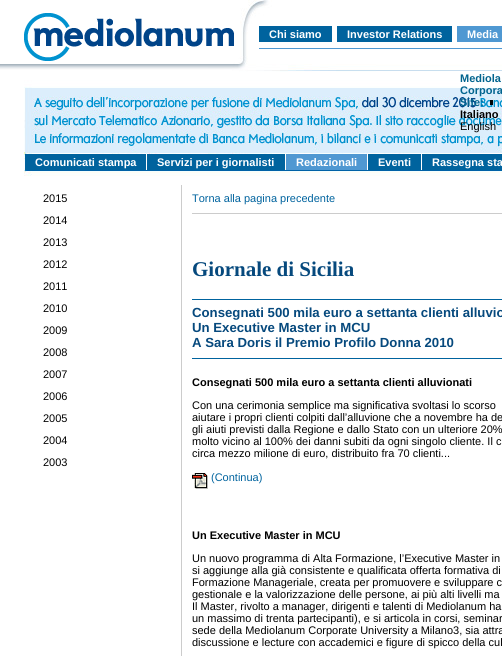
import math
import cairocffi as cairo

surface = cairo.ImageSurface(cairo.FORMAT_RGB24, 502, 656)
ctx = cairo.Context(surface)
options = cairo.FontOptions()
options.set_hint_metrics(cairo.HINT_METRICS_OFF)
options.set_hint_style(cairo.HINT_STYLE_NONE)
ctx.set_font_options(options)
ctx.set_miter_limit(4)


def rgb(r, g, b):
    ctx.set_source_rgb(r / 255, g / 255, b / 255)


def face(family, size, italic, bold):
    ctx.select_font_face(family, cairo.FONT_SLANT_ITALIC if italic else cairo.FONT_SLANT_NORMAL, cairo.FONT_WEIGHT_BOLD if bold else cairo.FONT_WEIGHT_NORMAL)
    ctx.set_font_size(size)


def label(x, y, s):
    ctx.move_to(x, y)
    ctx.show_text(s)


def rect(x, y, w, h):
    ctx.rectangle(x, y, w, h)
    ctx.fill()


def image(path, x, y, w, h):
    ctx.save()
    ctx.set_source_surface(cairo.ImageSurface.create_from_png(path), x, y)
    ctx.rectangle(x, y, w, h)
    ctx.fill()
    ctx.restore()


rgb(255, 255, 255)
ctx.paint()
image('image0.png', 0, 0, 502, 176)
image('image1.png', 24, 13, 210, 48)
rgb(255, 255, 255)
rect(238, 63, 1, 1)
rgb(79, 152, 210)
rect(259, 48, 243, 1)
rgb(0, 99, 158)
rect(259, 26, 73, 16)
face('Liberation Sans', 11, 0, 1)
rgb(255, 255, 255)
label(269, 38, 'Chi siamo')
rgb(0, 99, 158)
rect(337, 26, 115, 16)
rgb(255, 255, 255)
label(347, 38, 'Investor Relations')
rgb(79, 152, 210)
rect(457, 26, 45, 16)
rgb(255, 255, 255)
label(467, 38, 'Media')
rgb(1, 100, 142)
label(460, 82, 'Mediola')
label(460, 94, 'Corpora')
label(460, 106, 'Site:')
rgb(0, 4, 6)
rect(490, 100, 3, 5)
rgb(0, 0, 0)
label(460, 118, 'Italiano')
face('Liberation Sans', 11, 0, 0)
label(460, 130, 'English')
rgb(0, 99, 158)
rect(25, 154, 121, 16)
rgb(255, 255, 255)
rect(146, 154, 1, 16)
face('Liberation Sans', 11, 0, 1)
label(35, 166, 'Comunicati stampa')
rgb(0, 99, 158)
rect(147, 154, 138, 16)
rgb(255, 255, 255)
rect(285, 154, 1, 16)
label(157, 166, 'Servizi per i giornalisti')
rgb(79, 152, 210)
rect(286, 154, 81, 16)
rgb(255, 255, 255)
rect(367, 154, 1, 16)
label(296, 166, 'Redazionali')
rgb(0, 99, 158)
rect(368, 154, 53, 16)
rgb(255, 255, 255)
rect(421, 154, 1, 16)
label(378, 166, 'Eventi')
rgb(0, 99, 158)
rect(422, 154, 80, 16)
rgb(255, 255, 255)
label(432, 166, 'Rassegna sta')
face('Liberation Sans', 11, 0, 0)
rgb(0, 0, 0)
label(43, 202, '2015')
label(43, 224, '2014')
label(43, 246, '2013')
label(43, 268, '2012')
label(43, 290, '2011')
label(43, 312, '2010')
label(43, 334, '2009')
label(43, 356, '2008')
label(43, 378, '2007')
label(43, 400, '2006')
label(43, 422, '2005')
label(43, 444, '2004')
label(43, 466, '2003')
rgb(204, 204, 204)
rect(192, 213, 310, 1)
rgb(0, 99, 158)
label(192, 202, 'Torna alla pagina precedente')
rgb(204, 204, 204)
rect(181, 185, 1, 471)
face('Liberation Serif', 21, 0, 1)
rgb(6, 73, 125)
label(192, 276, 'Giornale di Sicilia')
rgb(0, 99, 158)
rect(192, 299, 310, 1)
face('Liberation Sans', 13.2, 0, 1)
rgb(6, 73, 125)
label(192, 317, 'Consegnati 500 mila euro a settanta clienti alluvio')
label(192, 332, 'Un Executive Master in MCU')
label(192, 347, 'A Sara Doris il Premio Profilo Donna 2010')
rgb(0, 99, 158)
rect(192, 358, 310, 1)
face('Liberation Sans', 11, 0, 1)
rgb(0, 0, 0)
label(192, 386, 'Consegnati 500 mila euro a settanta clienti alluvionati')
face('Liberation Sans', 11, 0, 0)
label(192, 409, 'Con una cerimonia semplice ma significativa svoltasi lo scorso')
label(192, 421, 'aiutare i propri clienti colpiti dall’alluvione che a novembre ha de')
label(192, 433, 'gli aiuti previsti dalla Regione e dallo Stato con un ulteriore 20%')
label(192, 445, 'molto vicino al 100% dei danni subiti da ogni singolo cliente. Il c')
label(192, 457, 'circa mezzo milione di euro, distribuito fra 70 clienti...')
image('image2.png', 192, 473, 16, 16)
rgb(0, 99, 158)
label(211, 481, '(Continua)')
face('Liberation Sans', 11, 0, 1)
rgb(0, 0, 0)
label(192, 539, 'Un Executive Master in MCU')
face('Liberation Sans', 11, 0, 0)
label(192, 562, 'Un nuovo programma di Alta Formazione, l’Executive Master in')
label(192, 574, 'si aggiunge alla già consistente e qualificata offerta formativa di')
label(192, 586, 'Formazione Manageriale, creata per promuovere e sviluppare c')
label(192, 598, 'gestionale e la valorizzazione delle persone, ai più alti livelli ma')
label(192, 610, 'Il Master, rivolto a manager, dirigenti e talenti di Mediolanum ha')
label(192, 622, 'un massimo di trenta partecipanti), e si articola in corsi, seminar')
label(192, 634, 'sede della Mediolanum Corporate University a Milano3, sia attra')
label(192, 646, 'discussione e lecture con accademici e figure di spicco della cul')
surface.write_to_png('render.png')
